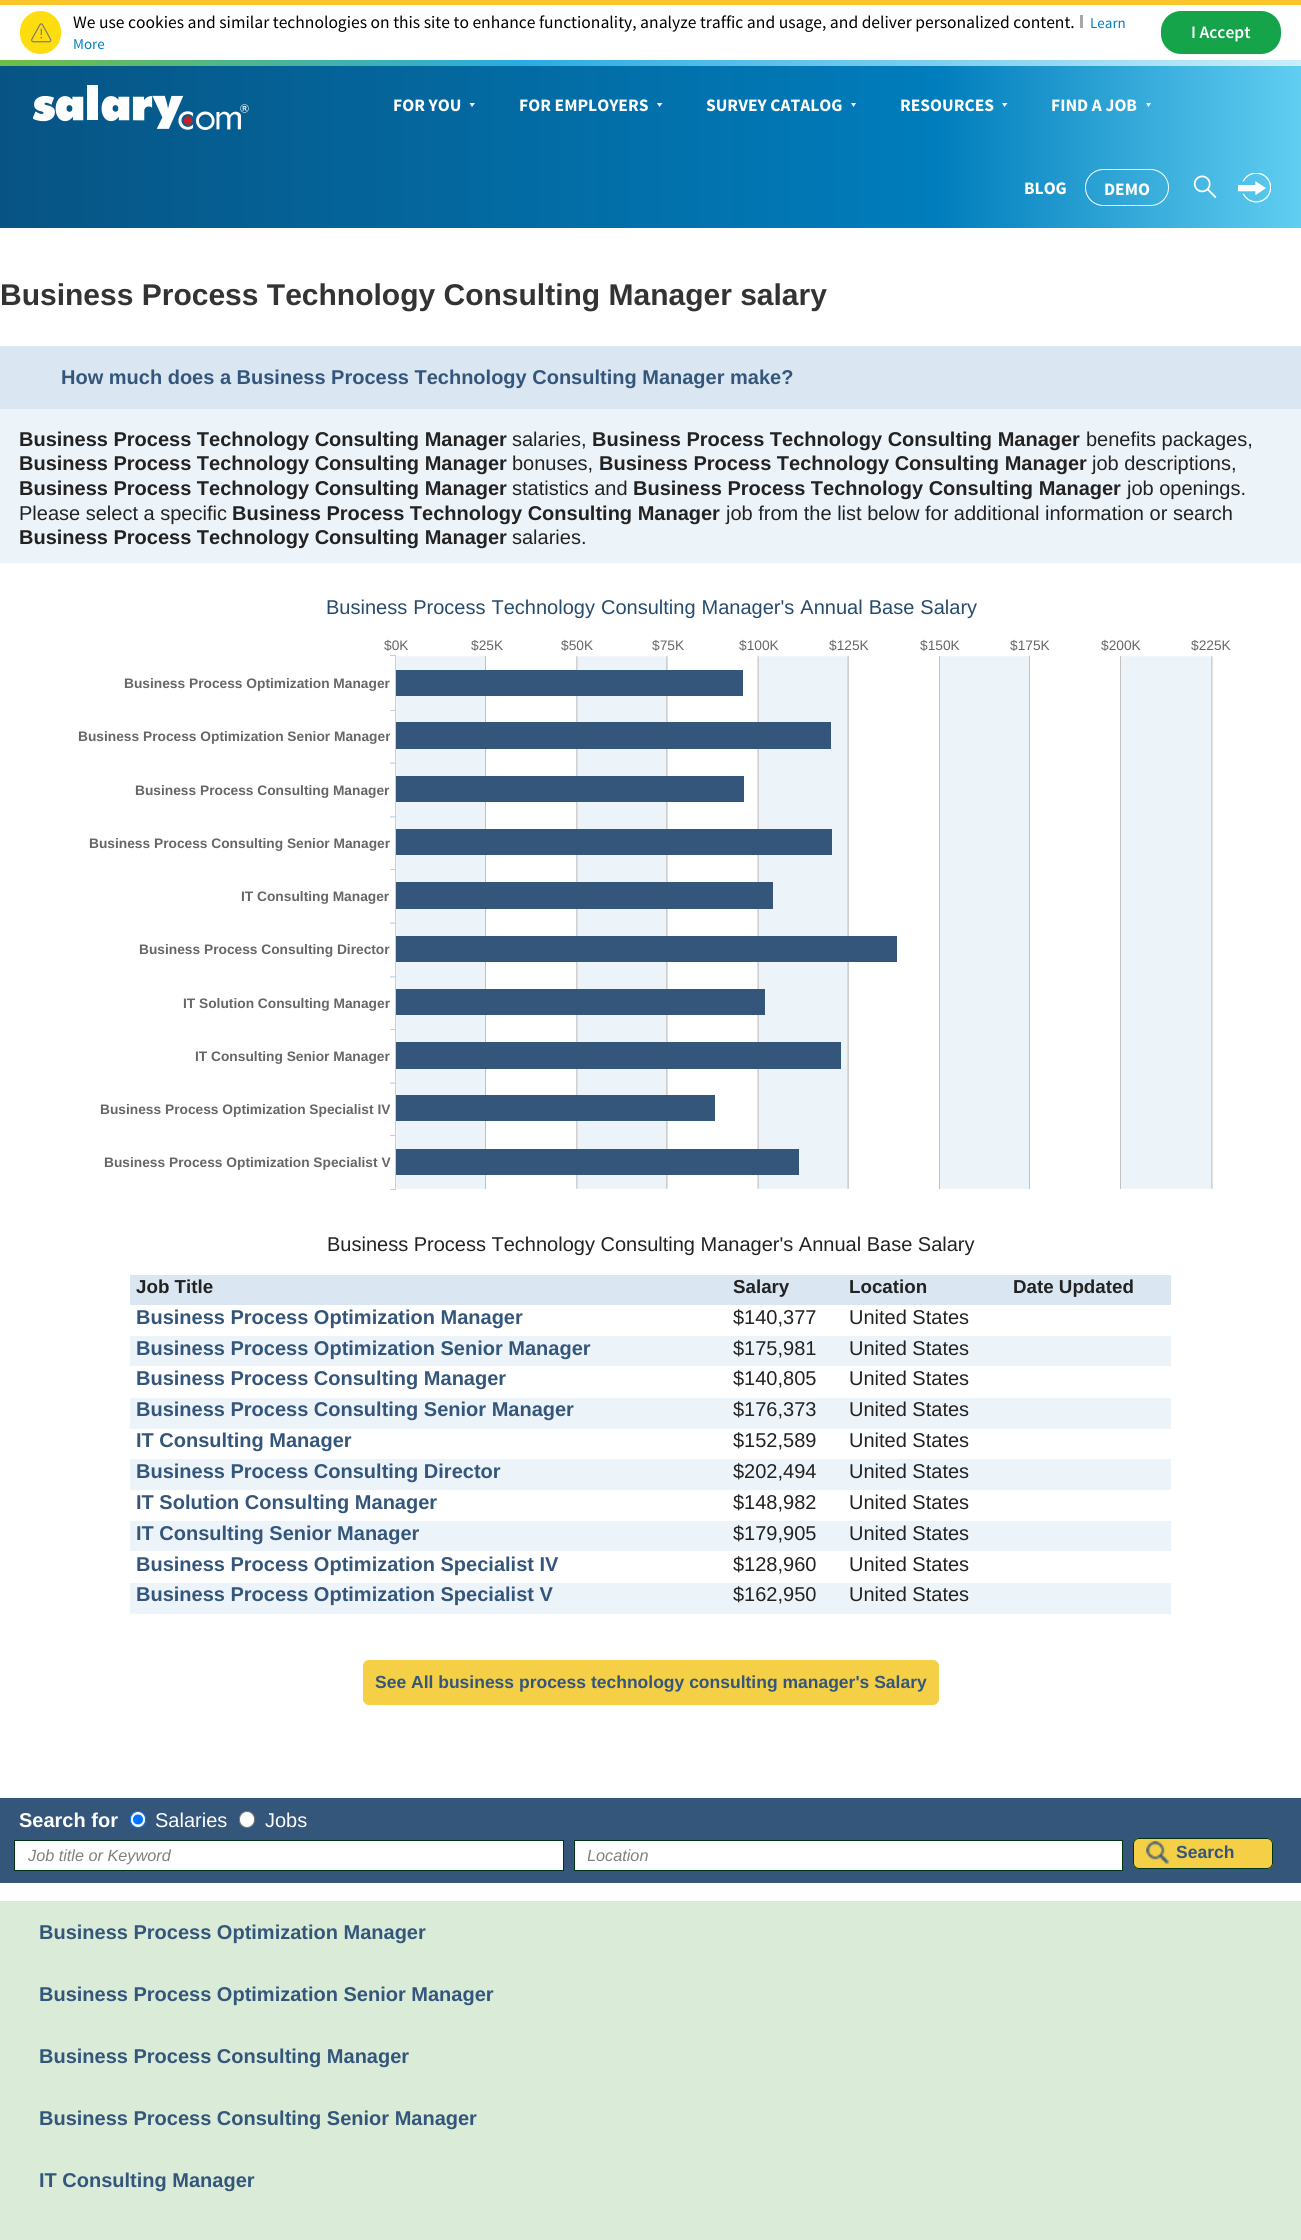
import math
import cairocffi as cairo

surface = cairo.ImageSurface(cairo.FORMAT_RGB24, 1301, 2240)
ctx = cairo.Context(surface)
options = cairo.FontOptions()
options.set_hint_metrics(cairo.HINT_METRICS_OFF)
options.set_hint_style(cairo.HINT_STYLE_NONE)
ctx.set_font_options(options)
ctx.set_miter_limit(4)


def rgb(r, g, b):
    ctx.set_source_rgb(r / 255, g / 255, b / 255)


def face(family, size, italic, bold):
    ctx.select_font_face(family, cairo.FONT_SLANT_ITALIC if italic else cairo.FONT_SLANT_NORMAL, cairo.FONT_WEIGHT_BOLD if bold else cairo.FONT_WEIGHT_NORMAL)
    ctx.set_font_size(size)


def label(x, y, s):
    ctx.move_to(x, y)
    ctx.show_text(s)


def tracked(x, y, s, letter, word):
    ctx.move_to(x, y)
    for ch in s:
        ctx.show_text(ch)
        ctx.rel_move_to(letter + word * (ch == ' '), 0)


def rect(x, y, w, h):
    ctx.rectangle(x, y, w, h)
    ctx.fill()


def rrect(x, y, w, h, r):
    ctx.new_sub_path()
    for i, (u, v) in enumerate([(x + w - r, y + h - r), (x + r, y + h - r), (x + r, y + r), (x + w - r, y + r)]):
        ctx.arc(u, v, r, i * math.pi / 2, (i + 1) * math.pi / 2)
    ctx.close_path()


def image(path, x, y, w, h):
    ctx.save()
    ctx.set_source_surface(cairo.ImageSurface.create_from_png(path), x, y)
    ctx.rectangle(x, y, w, h)
    ctx.fill()
    ctx.restore()


rgb(255, 255, 255)
ctx.paint()
rgb(251, 198, 44)
rect(0, 0, 1301, 5)
rgb(254, 221, 14)
rrect(20, 11, 41, 43, 20.5)
ctx.fill()
image('image0.png', 31, 23, 21, 20)
face('Source Sans Pro', 17.5, 0, 0)
rgb(0, 0, 0)
label(73, 28, 'We use cookies and similar technologies on this site to enhance functionality, analyze traffic and usage, and deliver personalized content.')
rgb(167, 167, 167)
rect(1080, 15, 3, 13)
face('Source Sans Pro', 15, 0, 0)
rgb(0, 125, 188)
label(1090, 28, 'Learn')
label(73, 49, 'More')
rgb(22, 164, 74)
rrect(1161, 11, 120, 43, 20)
ctx.fill()
face('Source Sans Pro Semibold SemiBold', 17.5, 0, 0)
rgb(255, 255, 255)
label(1191, 38, 'I Accept')
gradient = cairo.LinearGradient(0, 144, 1301, 144)
gradient.add_color_stop_rgba(0, 0.027, 0.329, 0.518, 1)
gradient.add_color_stop_rgba(0.72, 0, 0.49, 0.737, 1)
gradient.add_color_stop_rgba(1, 0.376, 0.808, 0.945, 1)
ctx.set_source(gradient)
rect(0, 66, 1301, 162)
gradient = cairo.LinearGradient(0, 63, 1301, 63)
gradient.add_color_stop_rgba(0, 0.435, 0.745, 0.267, 1)
gradient.add_color_stop_rgba(0.4, 0.161, 0.671, 0.886, 1)
gradient.add_color_stop_rgba(1, 0.792, 0.933, 0.98, 1)
ctx.set_source(gradient)
rect(0, 60, 1301, 6)
image('image1.png', 33, 85, 216, 45)
face('Source Sans Pro', 17.5, 0, 1)
rgb(255, 255, 255)
label(393, 111, 'FOR YOU')
ctx.new_path()
ctx.move_to(475, 103)
ctx.line_to(469.5, 103)
ctx.line_to(472, 107)
ctx.close_path()
ctx.fill()
label(519, 111, 'FOR EMPLOYERS')
ctx.new_path()
ctx.move_to(662.5, 103)
ctx.line_to(657, 103)
ctx.line_to(659.5, 107)
ctx.close_path()
ctx.fill()
label(706, 111, 'SURVEY CATALOG')
ctx.new_path()
ctx.move_to(856, 103)
ctx.line_to(851, 103)
ctx.line_to(853.5, 107)
ctx.close_path()
ctx.fill()
label(900, 111, 'RESOURCES')
ctx.new_path()
ctx.move_to(1007.5, 103)
ctx.line_to(1002, 103)
ctx.line_to(1004.5, 107)
ctx.close_path()
ctx.fill()
label(1051, 111, 'FIND A JOB')
ctx.new_path()
ctx.move_to(1151, 103)
ctx.line_to(1146, 103)
ctx.line_to(1148.5, 107)
ctx.close_path()
ctx.fill()
label(1024, 194, 'BLOG')
rrect(1085.5, 169.5, 83, 36, 18)
ctx.set_line_width(1)
ctx.stroke()
label(1104, 195, 'DEMO')
image('image2.png', 1193, 175, 24, 23)
image('image3.png', 1238, 173, 33, 30)
face('Liberation Sans', 30, 0, 1)
rgb(51, 51, 51)
label(0, 305, 'Business Process Technology Consulting Manager salary')
rgb(218, 230, 242)
rect(0, 346, 1301, 63)
face('Liberation Sans', 20, 0, 1)
rgb(52, 86, 123)
label(61, 384, 'How much does a Business Process Technology Consulting Manager make?')
rgb(236, 243, 249)
rect(0, 409, 1301, 154)
rgb(34, 34, 34)
label(19, 446, 'Business Process Technology Consulting Manager')
face('Liberation Sans', 20, 0, 0)
label(512, 446, 'salaries,')
face('Liberation Sans', 20, 0, 1)
label(592, 446, 'Business Process Technology Consulting Manager')
face('Liberation Sans', 20, 0, 0)
label(1086, 446, 'benefits packages,')
face('Liberation Sans', 20, 0, 1)
label(19, 470, 'Business Process Technology Consulting Manager')
face('Liberation Sans', 20, 0, 0)
label(512, 470, 'bonuses,')
face('Liberation Sans', 20, 0, 1)
label(599, 470, 'Business Process Technology Consulting Manager')
face('Liberation Sans', 20, 0, 0)
label(1092, 470, 'job descriptions,')
face('Liberation Sans', 20, 0, 1)
label(19, 495, 'Business Process Technology Consulting Manager')
face('Liberation Sans', 20, 0, 0)
label(512, 495, 'statistics and')
face('Liberation Sans', 20, 0, 1)
label(633, 495, 'Business Process Technology Consulting Manager')
face('Liberation Sans', 20, 0, 0)
label(1127, 495, 'job openings.')
label(19, 520, 'Please select a specific')
face('Liberation Sans', 20, 0, 1)
label(232, 520, 'Business Process Technology Consulting Manager')
face('Liberation Sans', 20, 0, 0)
label(726, 520, 'job from the list below for additional information or search')
face('Liberation Sans', 20, 0, 1)
label(19, 544, 'Business Process Technology Consulting Manager')
face('Liberation Sans', 20, 0, 0)
label(512, 544, 'salaries.')
rgb(39, 75, 109)
tracked(326, 614, 'Business Process Technology Consulting Manager\'s Annual Base Salary', 0, 0.5)
face('Liberation Sans', 13.75, 0, 0)
rgb(102, 102, 102)
label(384, 650, '$0K')
label(471, 650, '$25K')
label(561, 650, '$50K')
label(652, 650, '$75K')
label(739, 650, '$100K')
label(829, 650, '$125K')
label(920, 650, '$150K')
label(1010, 650, '$175K')
label(1101, 650, '$200K')
label(1191, 650, '$225K')
face('Liberation Sans', 13.75, 0, 1)
label(124, 688, 'Business Process Optimization Manager')
label(78, 741, 'Business Process Optimization Senior Manager')
label(135, 795, 'Business Process Consulting Manager')
label(89, 848, 'Business Process Consulting Senior Manager')
label(241, 901, 'IT Consulting Manager')
label(139, 954, 'Business Process Consulting Director')
label(183, 1008, 'IT Solution Consulting Manager')
label(195, 1061, 'IT Consulting Senior Manager')
image('image4.png', 390, 655, 823, 535)
label(100, 1114, 'Business Process Optimization Specialist IV')
label(104, 1167, 'Business Process Optimization Specialist V')
face('Liberation Sans', 20, 0, 0)
rgb(34, 34, 34)
label(327, 1251, 'Business Process Technology Consulting Manager\'s Annual Base Salary')
rgb(218, 230, 242)
rect(130, 1275, 1041, 30)
face('Liberation Sans', 18.75, 0, 1)
rgb(34, 34, 34)
label(136, 1293, 'Job Title')
label(733, 1293, 'Salary')
label(849, 1293, 'Location')
label(1013, 1293, 'Date Updated')
face('Liberation Sans', 20, 0, 1)
rgb(52, 86, 123)
label(136, 1324, 'Business Process Optimization Manager')
face('Liberation Sans', 20, 0, 0)
rgb(34, 34, 34)
label(733, 1324, '$140,377')
label(849, 1324, 'United States')
rgb(236, 243, 249)
rect(130, 1336, 1041, 30)
face('Liberation Sans', 20, 0, 1)
rgb(52, 86, 123)
label(136, 1355, 'Business Process Optimization Senior Manager')
face('Liberation Sans', 20, 0, 0)
rgb(34, 34, 34)
label(733, 1355, '$175,981')
label(849, 1355, 'United States')
face('Liberation Sans', 20, 0, 1)
rgb(52, 86, 123)
label(136, 1385, 'Business Process Consulting Manager')
face('Liberation Sans', 20, 0, 0)
rgb(34, 34, 34)
label(733, 1385, '$140,805')
label(849, 1385, 'United States')
rgb(236, 243, 249)
rect(130, 1398, 1041, 31)
face('Liberation Sans', 20, 0, 1)
rgb(52, 86, 123)
label(136, 1416, 'Business Process Consulting Senior Manager')
face('Liberation Sans', 20, 0, 0)
rgb(34, 34, 34)
label(733, 1416, '$176,373')
label(849, 1416, 'United States')
face('Liberation Sans', 20, 0, 1)
rgb(52, 86, 123)
label(136, 1447, 'IT Consulting Manager')
face('Liberation Sans', 20, 0, 0)
rgb(34, 34, 34)
label(733, 1447, '$152,589')
label(849, 1447, 'United States')
rgb(236, 243, 249)
rect(130, 1459, 1041, 31)
face('Liberation Sans', 20, 0, 1)
rgb(52, 86, 123)
label(136, 1478, 'Business Process Consulting Director')
face('Liberation Sans', 20, 0, 0)
rgb(34, 34, 34)
label(733, 1478, '$202,494')
label(849, 1478, 'United States')
face('Liberation Sans', 20, 0, 1)
rgb(52, 86, 123)
label(136, 1509, 'IT Solution Consulting Manager')
face('Liberation Sans', 20, 0, 0)
rgb(34, 34, 34)
label(733, 1509, '$148,982')
label(849, 1509, 'United States')
rgb(236, 243, 249)
rect(130, 1521, 1041, 30)
face('Liberation Sans', 20, 0, 1)
rgb(52, 86, 123)
label(136, 1540, 'IT Consulting Senior Manager')
face('Liberation Sans', 20, 0, 0)
rgb(34, 34, 34)
label(733, 1540, '$179,905')
label(849, 1540, 'United States')
face('Liberation Sans', 20, 0, 1)
rgb(52, 86, 123)
label(136, 1571, 'Business Process Optimization Specialist IV')
face('Liberation Sans', 20, 0, 0)
rgb(34, 34, 34)
label(733, 1571, '$128,960')
label(849, 1571, 'United States')
rgb(236, 243, 249)
rect(130, 1583, 1041, 31)
face('Liberation Sans', 20, 0, 1)
rgb(52, 86, 123)
label(136, 1601, 'Business Process Optimization Specialist V')
face('Liberation Sans', 20, 0, 0)
rgb(34, 34, 34)
label(733, 1601, '$162,950')
label(849, 1601, 'United States')
rgb(245, 207, 70)
rrect(363, 1660, 576, 45, 6)
ctx.fill()
face('Liberation Sans', 17.5, 0, 1)
rgb(52, 86, 123)
label(375, 1688, 'See All business process technology consulting manager\'s Salary')
rect(0, 1798, 1301, 85)
face('Liberation Sans', 20, 0, 1)
rgb(255, 255, 255)
label(19, 1827, 'Search for')
rrect(130.5, 1811.5, 15, 16, 7.5)
ctx.fill_preserve()
rgb(0, 117, 255)
ctx.stroke()
ctx.arc(138, 1819.5, 5, 0, 2 * math.pi)
ctx.fill()
face('Liberation Sans', 20, 0, 0)
rgb(255, 255, 255)
label(155, 1827, 'Salaries')
rrect(239.5, 1811.5, 15, 16, 7.5)
ctx.fill_preserve()
rgb(118, 118, 118)
ctx.stroke()
rgb(255, 255, 255)
label(265, 1827, 'Jobs')
ctx.rectangle(14.5, 1840.5, 549, 30)
ctx.fill_preserve()
rgb(1, 52, 19)
ctx.stroke()
face('Liberation Sans', 16.25, 1, 0)
rgb(128, 128, 128)
label(28, 1861, 'Job title or Keyword')
rgb(255, 255, 255)
ctx.rectangle(574.5, 1840.5, 548, 30)
ctx.fill_preserve()
rgb(1, 52, 19)
ctx.stroke()
ctx.save()
ctx.rectangle(588, 1846, 482, 19)
ctx.clip()
rgb(128, 128, 128)
label(587, 1861, 'Location')
ctx.restore()
rgb(245, 207, 70)
rrect(1133, 1838, 140, 31, 6)
ctx.fill()
image('image5.png', 1146, 1841, 23, 23)
rrect(1133.5, 1838.5, 139, 30, 5.5)
rgb(1, 52, 19)
ctx.stroke()
face('Liberation Sans', 17.5, 0, 1)
rgb(52, 86, 123)
label(1176, 1858, 'Search')
rgb(218, 235, 215)
rect(0, 1901, 1301, 339)
face('Liberation Sans', 20, 0, 1)
rgb(52, 86, 123)
label(39, 1939, 'Business Process Optimization Manager')
label(39, 2001, 'Business Process Optimization Senior Manager')
label(39, 2063, 'Business Process Consulting Manager')
label(39, 2125, 'Business Process Consulting Senior Manager')
label(39, 2187, 'IT Consulting Manager')
surface.write_to_png('render.png')
